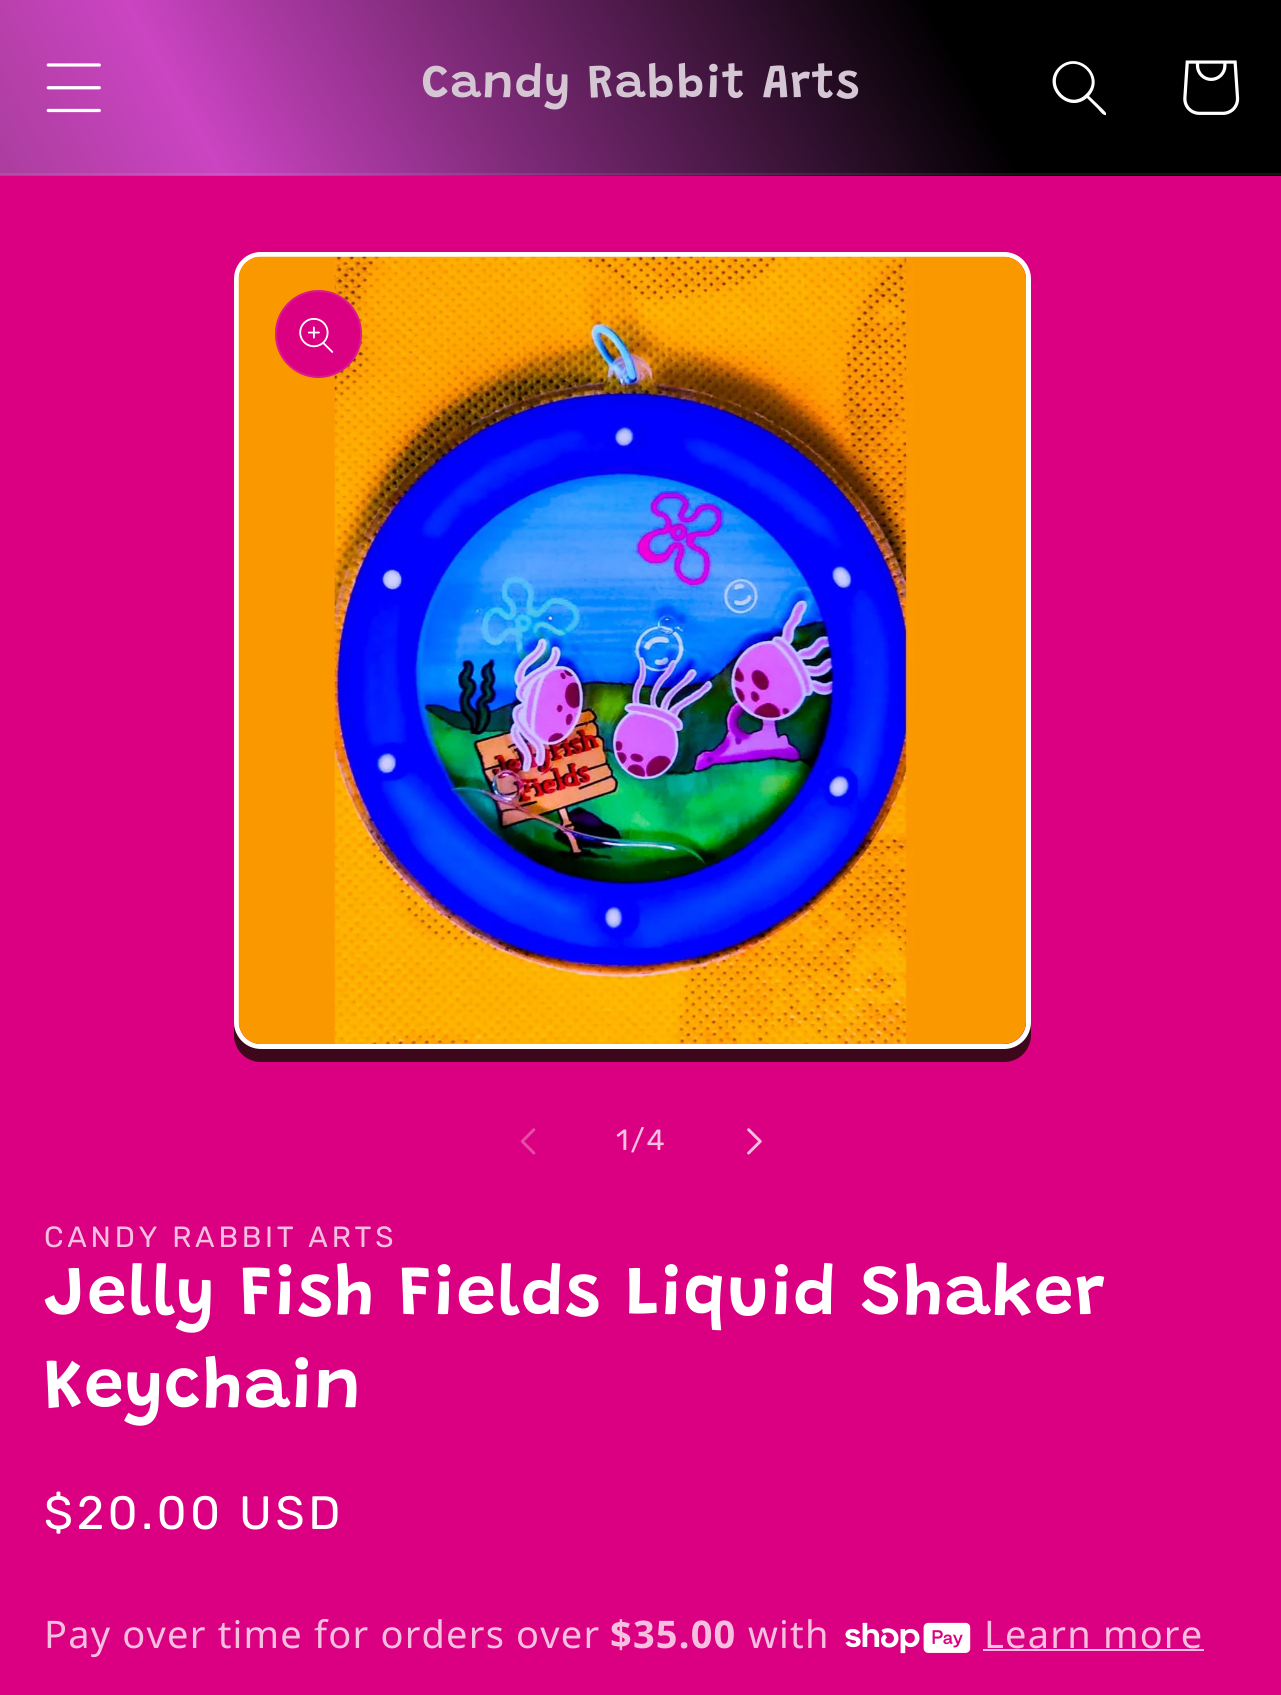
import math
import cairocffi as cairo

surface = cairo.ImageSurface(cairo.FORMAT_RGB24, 1281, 1695)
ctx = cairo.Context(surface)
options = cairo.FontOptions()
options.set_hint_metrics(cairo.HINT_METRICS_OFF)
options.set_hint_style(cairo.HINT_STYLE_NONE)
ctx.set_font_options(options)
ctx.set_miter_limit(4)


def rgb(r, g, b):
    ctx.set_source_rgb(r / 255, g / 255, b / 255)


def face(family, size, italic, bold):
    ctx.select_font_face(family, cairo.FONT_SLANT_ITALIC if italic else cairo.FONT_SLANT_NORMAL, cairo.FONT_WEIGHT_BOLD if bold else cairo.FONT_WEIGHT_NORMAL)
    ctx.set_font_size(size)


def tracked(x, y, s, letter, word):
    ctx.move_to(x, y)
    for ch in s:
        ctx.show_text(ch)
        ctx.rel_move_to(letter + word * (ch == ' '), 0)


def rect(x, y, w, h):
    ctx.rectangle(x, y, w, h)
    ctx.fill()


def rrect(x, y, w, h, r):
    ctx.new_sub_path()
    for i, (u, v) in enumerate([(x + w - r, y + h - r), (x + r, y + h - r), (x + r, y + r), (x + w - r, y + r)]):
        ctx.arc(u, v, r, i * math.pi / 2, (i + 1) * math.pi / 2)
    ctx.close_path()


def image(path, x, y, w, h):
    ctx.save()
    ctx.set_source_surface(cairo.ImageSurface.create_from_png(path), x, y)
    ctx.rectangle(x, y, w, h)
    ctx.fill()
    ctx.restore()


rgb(218, 0, 129)
ctx.paint()
gradient = cairo.LinearGradient(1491, 377, -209, 1320)
gradient.add_color_stop_rgba(0.16, 0, 0, 0, 1)
gradient.add_color_stop_rgba(0.52, 0.796, 0.267, 0.761, 1)
gradient.add_color_stop_rgba(1, 0.192, 0.149, 0.071, 1)
ctx.set_source(gradient)
rect(0, 0, 1281, 176)
gradient = cairo.LinearGradient(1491, 377, -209, 1320)
gradient.add_color_stop_rgba(0.16, 0.078, 0.078, 0.078, 1)
gradient.add_color_stop_rgba(0.52, 0.812, 0.325, 0.78, 1)
gradient.add_color_stop_rgba(1, 0.255, 0.216, 0.145, 1)
ctx.set_source(gradient)
rect(0, 173, 1281, 2)
image('image0.png', 46, 63, 55, 50)
face('Grandstander SemiBold', 47.25, 0, 0)
rgb(213, 198, 212)
tracked(422, 97, 'Candy Rabbit Arts', 1.4, 0)
rgb(255, 255, 255)
ctx.set_fill_rule(cairo.FILL_RULE_EVEN_ODD)
ctx.new_path()
ctx.move_to(1086, 94)
ctx.curve_to(1070, 111, 1045, 86, 1061, 69)
ctx.curve_to(1078, 53, 1103, 78, 1086, 94)
ctx.close_path()
ctx.move_to(1087, 98)
ctx.curve_to(1067, 115, 1040, 85, 1059, 67)
ctx.curve_to(1078, 49, 1107, 76, 1089, 96)
ctx.curve_to(1091, 98, 1106, 112, 1106, 113)
ctx.line_to(1106, 115)
ctx.curve_to(1103, 116, 1099, 110, 1098, 109)
ctx.close_path()
ctx.fill()
image('image1.png', 1183, 60, 57, 55)
rgb(61, 8, 27)
ctx.set_fill_rule(cairo.FILL_RULE_WINDING)
ctx.new_path()
ctx.move_to(234, 1022)
ctx.line_to(234, 1035)
ctx.curve_to(234, 1050, 246, 1062, 261, 1062)
ctx.line_to(1004, 1062)
ctx.curve_to(1019, 1062, 1031, 1050, 1031, 1035)
ctx.line_to(1031, 293)
ctx.line_to(1030, 288)
ctx.line_to(1030, 1022)
ctx.curve_to(1030, 1036, 1018, 1048, 1004, 1048)
ctx.line_to(261, 1048)
ctx.curve_to(246, 1048, 234, 1036, 234, 1022)
ctx.close_path()
ctx.fill()
rgb(218, 0, 129)
rrect(236.5, 254.5, 792, 792, 24.5)
ctx.fill_preserve()
rgb(255, 255, 255)
ctx.set_line_width(5)
ctx.stroke()
image('image2.png', 238, 256, 788, 788)
rgb(218, 0, 129)
rrect(275, 290, 87, 88, 43.5)
ctx.fill()
rrect(276, 291, 85, 86, 42.5)
ctx.set_source_rgba(1, 1, 1, 0.1)
ctx.set_line_width(2)
ctx.stroke()
image('image3.png', 299, 317, 35, 36)
image('image4.png', 520, 1128, 16, 27)
face('Rubik', 29.25, 0, 0)
rgb(246, 191, 224)
tracked(616, 1150, '1/4', 2, 0)
image('image5.png', 747, 1128, 15, 27)
tracked(44, 1247, 'CANDY RABBIT ARTS', 3.75, 0)
face('Grandstander SemiBold', 70.9, 0, 0)
rgb(255, 255, 255)
tracked(44, 1314, 'Jelly Fish Fields Liquid Shaker', 1.4, 0)
tracked(44, 1407, 'Keychain', 1.4, 0)
face('Rubik', 46.75, 0, 0)
tracked(44, 1529, '$20.00 USD', 3.75, 0)
face('Noto Sans', 38, 0, 0)
rgb(246, 191, 224)
tracked(44, 1648, 'Pay over time for orders over', 1.2, 0)
face('Noto Sans', 38, 0, 1)
tracked(610, 1648, '$35.00', 1.2, 0)
face('Noto Sans', 38, 0, 0)
tracked(748, 1648, 'with', 1.2, 0)
image('image6.png', 845, 1622, 126, 32)
tracked(984, 1648, 'Learn more', 1.2, 0)
rect(983, 1649, 221, 2)
surface.write_to_png('render.png')
